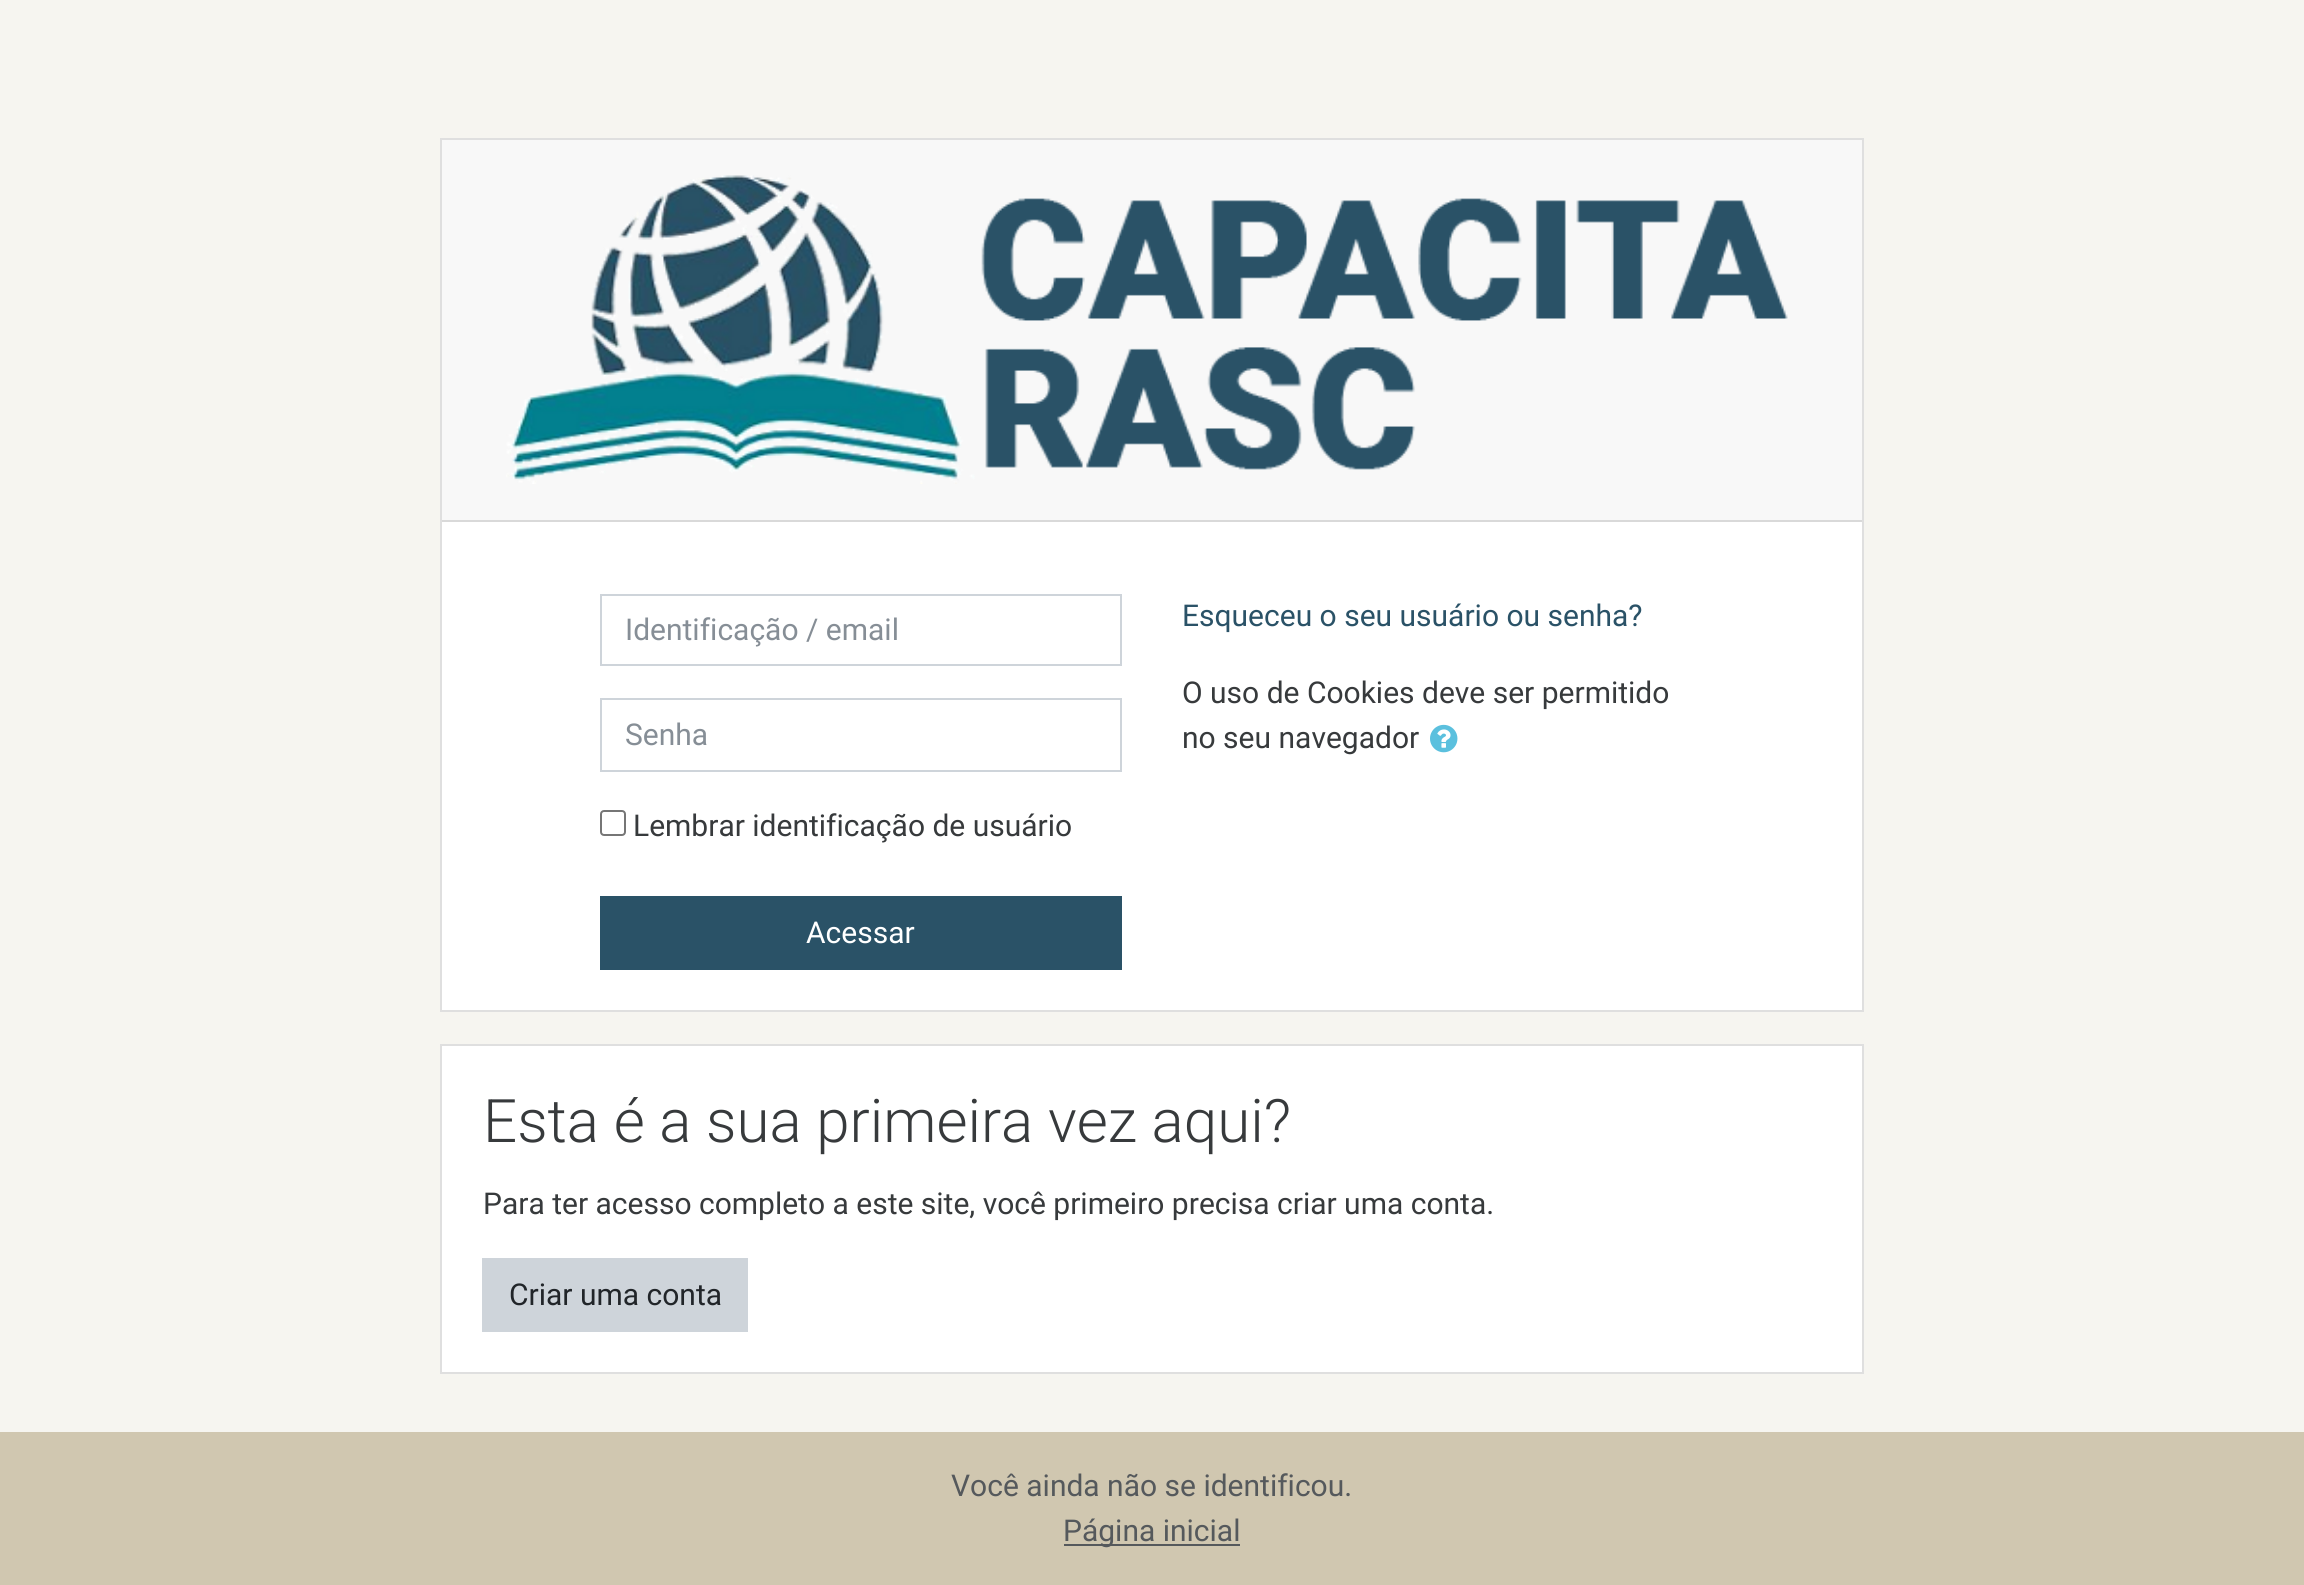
import math
import cairocffi as cairo

surface = cairo.ImageSurface(cairo.FORMAT_RGB24, 2304, 1585)
ctx = cairo.Context(surface)
options = cairo.FontOptions()
options.set_hint_metrics(cairo.HINT_METRICS_OFF)
options.set_hint_style(cairo.HINT_STYLE_NONE)
ctx.set_font_options(options)
ctx.set_miter_limit(4)


def rgb(r, g, b):
    ctx.set_source_rgb(r / 255, g / 255, b / 255)


def face(family, size, italic, bold):
    ctx.select_font_face(family, cairo.FONT_SLANT_ITALIC if italic else cairo.FONT_SLANT_NORMAL, cairo.FONT_WEIGHT_BOLD if bold else cairo.FONT_WEIGHT_NORMAL)
    ctx.set_font_size(size)


def label(x, y, s):
    ctx.move_to(x, y)
    ctx.show_text(s)


def rect(x, y, w, h):
    ctx.rectangle(x, y, w, h)
    ctx.fill()


def rrect(x, y, w, h, r):
    ctx.new_sub_path()
    for i, (u, v) in enumerate([(x + w - r, y + h - r), (x + r, y + h - r), (x + r, y + r), (x + w - r, y + r)]):
        ctx.arc(u, v, r, i * math.pi / 2, (i + 1) * math.pi / 2)
    ctx.close_path()


def image(path, x, y, w, h):
    ctx.save()
    ctx.set_source_surface(cairo.ImageSurface.create_from_png(path), x, y)
    ctx.rectangle(x, y, w, h)
    ctx.fill()
    ctx.restore()


rgb(246, 245, 240)
ctx.paint()
rgb(255, 255, 255)
rect(442, 522, 1420, 488)
ctx.rectangle(441, 139, 1422, 872)
rgb(223, 223, 223)
ctx.stroke()
rgb(248, 248, 248)
rect(442, 140, 1420, 380)
rgb(217, 217, 217)
rect(442, 520, 1420, 2)
image('image0.png', 506, 175, 1282, 309)
ctx.rectangle(601, 595, 520, 70)
rgb(206, 212, 218)
ctx.stroke()
face('Roboto', 30, 0, 0)
rgb(134, 142, 150)
label(625, 640, 'Identificação / email')
ctx.rectangle(601, 699, 520, 72)
rgb(206, 212, 218)
ctx.stroke()
rgb(134, 142, 150)
label(625, 745, 'Senha')
rrect(601, 811, 24, 24, 3)
rgb(118, 118, 118)
ctx.stroke()
rgb(55, 58, 60)
label(633, 836, 'Lembrar identificação de usuário')
rgb(42, 82, 103)
rect(600, 896, 522, 74)
rgb(255, 255, 255)
label(806, 943, 'Acessar')
rgb(42, 82, 103)
label(1182, 626, 'Esqueceu o seu usuário ou senha?')
rgb(55, 58, 60)
label(1182, 703, 'O uso de Cookies deve ser permitido')
label(1182, 748, 'no seu navegador')
image('image1.png', 1430, 724, 28, 29)
rgb(255, 255, 255)
ctx.rectangle(441, 1045, 1422, 328)
ctx.fill_preserve()
rgb(223, 223, 223)
ctx.stroke()
face('Roboto Light', 60, 0, 0)
rgb(55, 58, 60)
label(483, 1142, 'Esta é a sua primeira vez aqui?')
face('Roboto', 30, 0, 0)
label(483, 1214, 'Para ter acesso completo a este site, você primeiro precisa criar uma conta.')
rgb(206, 212, 218)
rect(482, 1258, 266, 74)
rgb(33, 37, 41)
label(509, 1305, 'Criar uma conta')
rgb(208, 199, 176)
rect(0, 1432, 2304, 153)
rgb(85, 89, 92)
label(951, 1496, 'Você ainda não se identificou.')
rect(1064, 1544, 176, 2)
label(1063, 1541, 'Página inicial')
surface.write_to_png('render.png')
